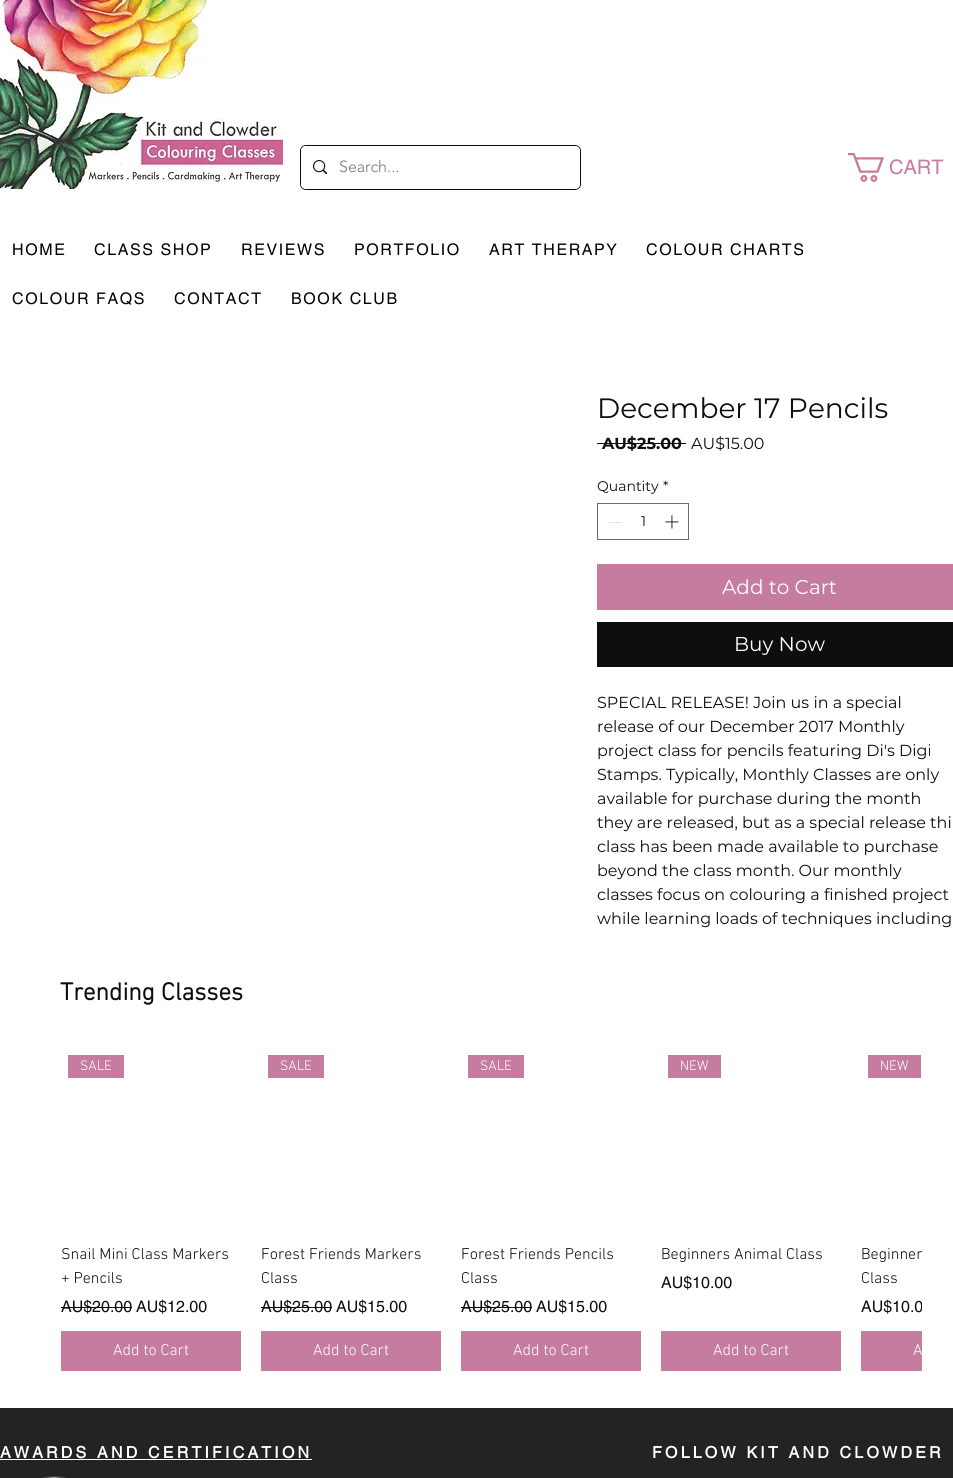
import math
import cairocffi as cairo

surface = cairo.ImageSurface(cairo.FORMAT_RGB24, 953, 1478)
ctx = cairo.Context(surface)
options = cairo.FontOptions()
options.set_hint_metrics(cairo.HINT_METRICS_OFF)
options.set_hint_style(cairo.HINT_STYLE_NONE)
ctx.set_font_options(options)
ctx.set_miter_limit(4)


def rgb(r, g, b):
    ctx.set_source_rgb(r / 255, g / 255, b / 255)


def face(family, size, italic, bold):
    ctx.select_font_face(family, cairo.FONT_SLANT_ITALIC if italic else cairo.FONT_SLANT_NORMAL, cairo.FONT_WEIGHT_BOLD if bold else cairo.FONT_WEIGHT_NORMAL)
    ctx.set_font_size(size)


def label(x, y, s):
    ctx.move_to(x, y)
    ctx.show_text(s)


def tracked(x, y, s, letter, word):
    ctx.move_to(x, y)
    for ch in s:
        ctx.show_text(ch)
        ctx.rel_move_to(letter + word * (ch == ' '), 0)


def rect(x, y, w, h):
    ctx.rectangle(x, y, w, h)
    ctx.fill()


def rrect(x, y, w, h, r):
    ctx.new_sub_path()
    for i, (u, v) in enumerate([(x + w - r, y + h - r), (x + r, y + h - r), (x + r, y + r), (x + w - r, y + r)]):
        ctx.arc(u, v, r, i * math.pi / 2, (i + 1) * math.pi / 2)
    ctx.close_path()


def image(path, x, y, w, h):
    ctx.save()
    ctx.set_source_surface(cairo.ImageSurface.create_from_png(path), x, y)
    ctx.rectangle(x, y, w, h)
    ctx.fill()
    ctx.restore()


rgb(255, 255, 255)
ctx.paint()
image('image0.png', 0, 0, 283, 189)
rrect(300.5, 145.5, 280, 44, 5.5)
rgb(14, 14, 14)
ctx.set_line_width(1)
ctx.stroke()
rgb(255, 255, 255)
rrect(301, 146, 279, 43, 5)
ctx.fill()
image('image1.png', 313, 160, 14, 15)
face('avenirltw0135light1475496 Light', 16, 0, 0)
rgb(120, 120, 120)
label(339, 172, 'Search...')
image('image2.png', 848, 153, 36, 29)
face('helvetica', 20, 0, 0)
rgb(198, 124, 158)
label(889, 174, 'CART')
face('helvetica', 16, 0, 0)
rgb(0, 0, 0)
tracked(12, 255, 'HOME', 1.6, 0)
tracked(94, 255, 'CLASS SHOP', 1.6, 0)
tracked(241, 255, 'REVIEWS', 1.6, 0)
tracked(354, 255, 'PORTFOLIO', 1.6, 0)
tracked(489, 255, 'ART THERAPY', 1.6, 0)
tracked(646, 255, 'COLOUR CHARTS', 1.6, 0)
tracked(12, 304, 'COLOUR FAQS', 1.6, 0)
tracked(174, 304, 'CONTACT', 1.6, 0)
tracked(291, 304, 'BOOK CLUB', 1.6, 0)
face('Montserrat', 28, 0, 0)
rgb(14, 14, 14)
label(597, 418, 'December 17 Pencils')
face('Montserrat', 16, 0, 1)
label(602, 449, 'AU$25.00')
rect(597, 443, 89, 1)
face('Montserrat', 16, 0, 0)
label(691, 449, 'AU$15.00')
face('Montserrat', 14, 0, 0)
label(597, 491, 'Quantity')
label(663, 491, '*')
ctx.rectangle(597.5, 503.5, 91, 36)
rgb(110, 110, 110)
ctx.stroke()
rgb(227, 227, 227)
rect(609, 522, 13, 1)
rgb(14, 14, 14)
label(641, 526, '1')
image('image3.png', 665, 515, 14, 14)
rgb(198, 124, 158)
rect(597, 564, 356, 46)
face('Montserrat', 20, 0, 0)
rgb(255, 255, 255)
label(722, 594, 'Add to Cart')
rgb(14, 14, 14)
rect(597, 622, 356, 45)
rgb(255, 255, 255)
label(734, 651, 'Buy Now')
face('Montserrat', 16, 0, 0)
rgb(14, 14, 14)
label(597, 708, 'SPECIAL RELEASE! Join us in a special')
label(597, 732, 'release of our December 2017 Monthly')
label(597, 756, 'project class for pencils featuring Di\'s Digi')
label(597, 780, 'Stamps. Typically, Monthly Classes are only')
label(597, 804, 'available for purchase during the month')
label(597, 828, 'they are released, but as a special release thi')
label(597, 852, 'class has been made available to purchase')
label(597, 876, 'beyond the class month. Our monthly')
label(597, 900, 'classes focus on colouring a finished project')
label(597, 924, 'while learning loads of techniques including')
face('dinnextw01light', 25, 0, 1)
label(60, 1000, 'Trending Classes')
rgb(198, 124, 158)
rect(68, 1055, 56, 23)
face('dinnextw01light Light', 14, 0, 0)
rgb(255, 255, 255)
label(80, 1070, 'SALE')
face('dinnextw01light Light', 16, 0, 0)
rgb(14, 14, 14)
label(61, 1259, 'Snail Mini Class Markers')
label(61, 1283, '+ Pencils')
face('helvetica', 16, 0, 0)
label(61, 1312, 'AU$20.00')
rect(61, 1307, 71, 1)
label(136, 1312, 'AU$12.00')
rgb(198, 124, 158)
rect(61, 1331, 180, 40)
face('dinnextw01light Light', 16, 0, 0)
rgb(255, 255, 255)
label(113, 1355, 'Add to Cart')
rgb(198, 124, 158)
rect(268, 1055, 56, 23)
face('dinnextw01light Light', 14, 0, 0)
rgb(255, 255, 255)
label(280, 1070, 'SALE')
face('dinnextw01light Light', 16, 0, 0)
rgb(14, 14, 14)
label(261, 1259, 'Forest Friends Markers')
label(261, 1283, 'Class')
face('helvetica', 16, 0, 0)
label(261, 1312, 'AU$25.00')
rect(261, 1307, 71, 1)
label(336, 1312, 'AU$15.00')
rgb(198, 124, 158)
rect(261, 1331, 180, 40)
face('dinnextw01light Light', 16, 0, 0)
rgb(255, 255, 255)
label(313, 1355, 'Add to Cart')
rgb(198, 124, 158)
rect(468, 1055, 56, 23)
face('dinnextw01light Light', 14, 0, 0)
rgb(255, 255, 255)
label(480, 1070, 'SALE')
face('dinnextw01light Light', 16, 0, 0)
rgb(14, 14, 14)
label(461, 1259, 'Forest Friends Pencils')
label(461, 1283, 'Class')
face('helvetica', 16, 0, 0)
label(461, 1312, 'AU$25.00')
rect(461, 1307, 71, 1)
label(536, 1312, 'AU$15.00')
rgb(198, 124, 158)
rect(461, 1331, 180, 40)
face('dinnextw01light Light', 16, 0, 0)
rgb(255, 255, 255)
label(513, 1355, 'Add to Cart')
rgb(198, 124, 158)
rect(668, 1055, 53, 23)
face('dinnextw01light Light', 14, 0, 0)
rgb(255, 255, 255)
label(680, 1070, 'NEW')
face('dinnextw01light Light', 16, 0, 0)
rgb(14, 14, 14)
label(661, 1259, 'Beginners Animal Class')
face('helvetica', 16, 0, 0)
label(661, 1288, 'AU$10.00')
rgb(198, 124, 158)
rect(661, 1331, 180, 40)
face('dinnextw01light Light', 16, 0, 0)
rgb(255, 255, 255)
label(713, 1355, 'Add to Cart')
rgb(198, 124, 158)
rect(868, 1055, 53, 23)
face('dinnextw01light Light', 14, 0, 0)
rgb(255, 255, 255)
label(880, 1070, 'NEW')
face('dinnextw01light Light', 16, 0, 0)
rgb(14, 14, 14)
label(861, 1259, 'Beginner')
label(861, 1283, 'Class')
ctx.save()
ctx.rectangle(60, 1046, 862, 326)
ctx.clip()
face('helvetica', 16, 0, 0)
label(861, 1312, 'AU$10.0')
ctx.restore()
rgb(198, 124, 158)
rect(861, 1331, 61, 40)
rgb(255, 255, 255)
label(913, 1355, 'A')
rgb(36, 35, 35)
rect(0, 1408, 953, 70)
face('helvetica', 16, 0, 1)
rgb(255, 255, 255)
tracked(0, 1458, 'AWARDS AND CERTIFICATION', 3.2, 0)
rect(0, 1459, 312, 1)
tracked(652, 1458, 'FOLLOW KIT AND CLOWDER', 3.2, 0)
image('image4.png', 41, 1476, 26, 2)
surface.write_to_png('render.png')
